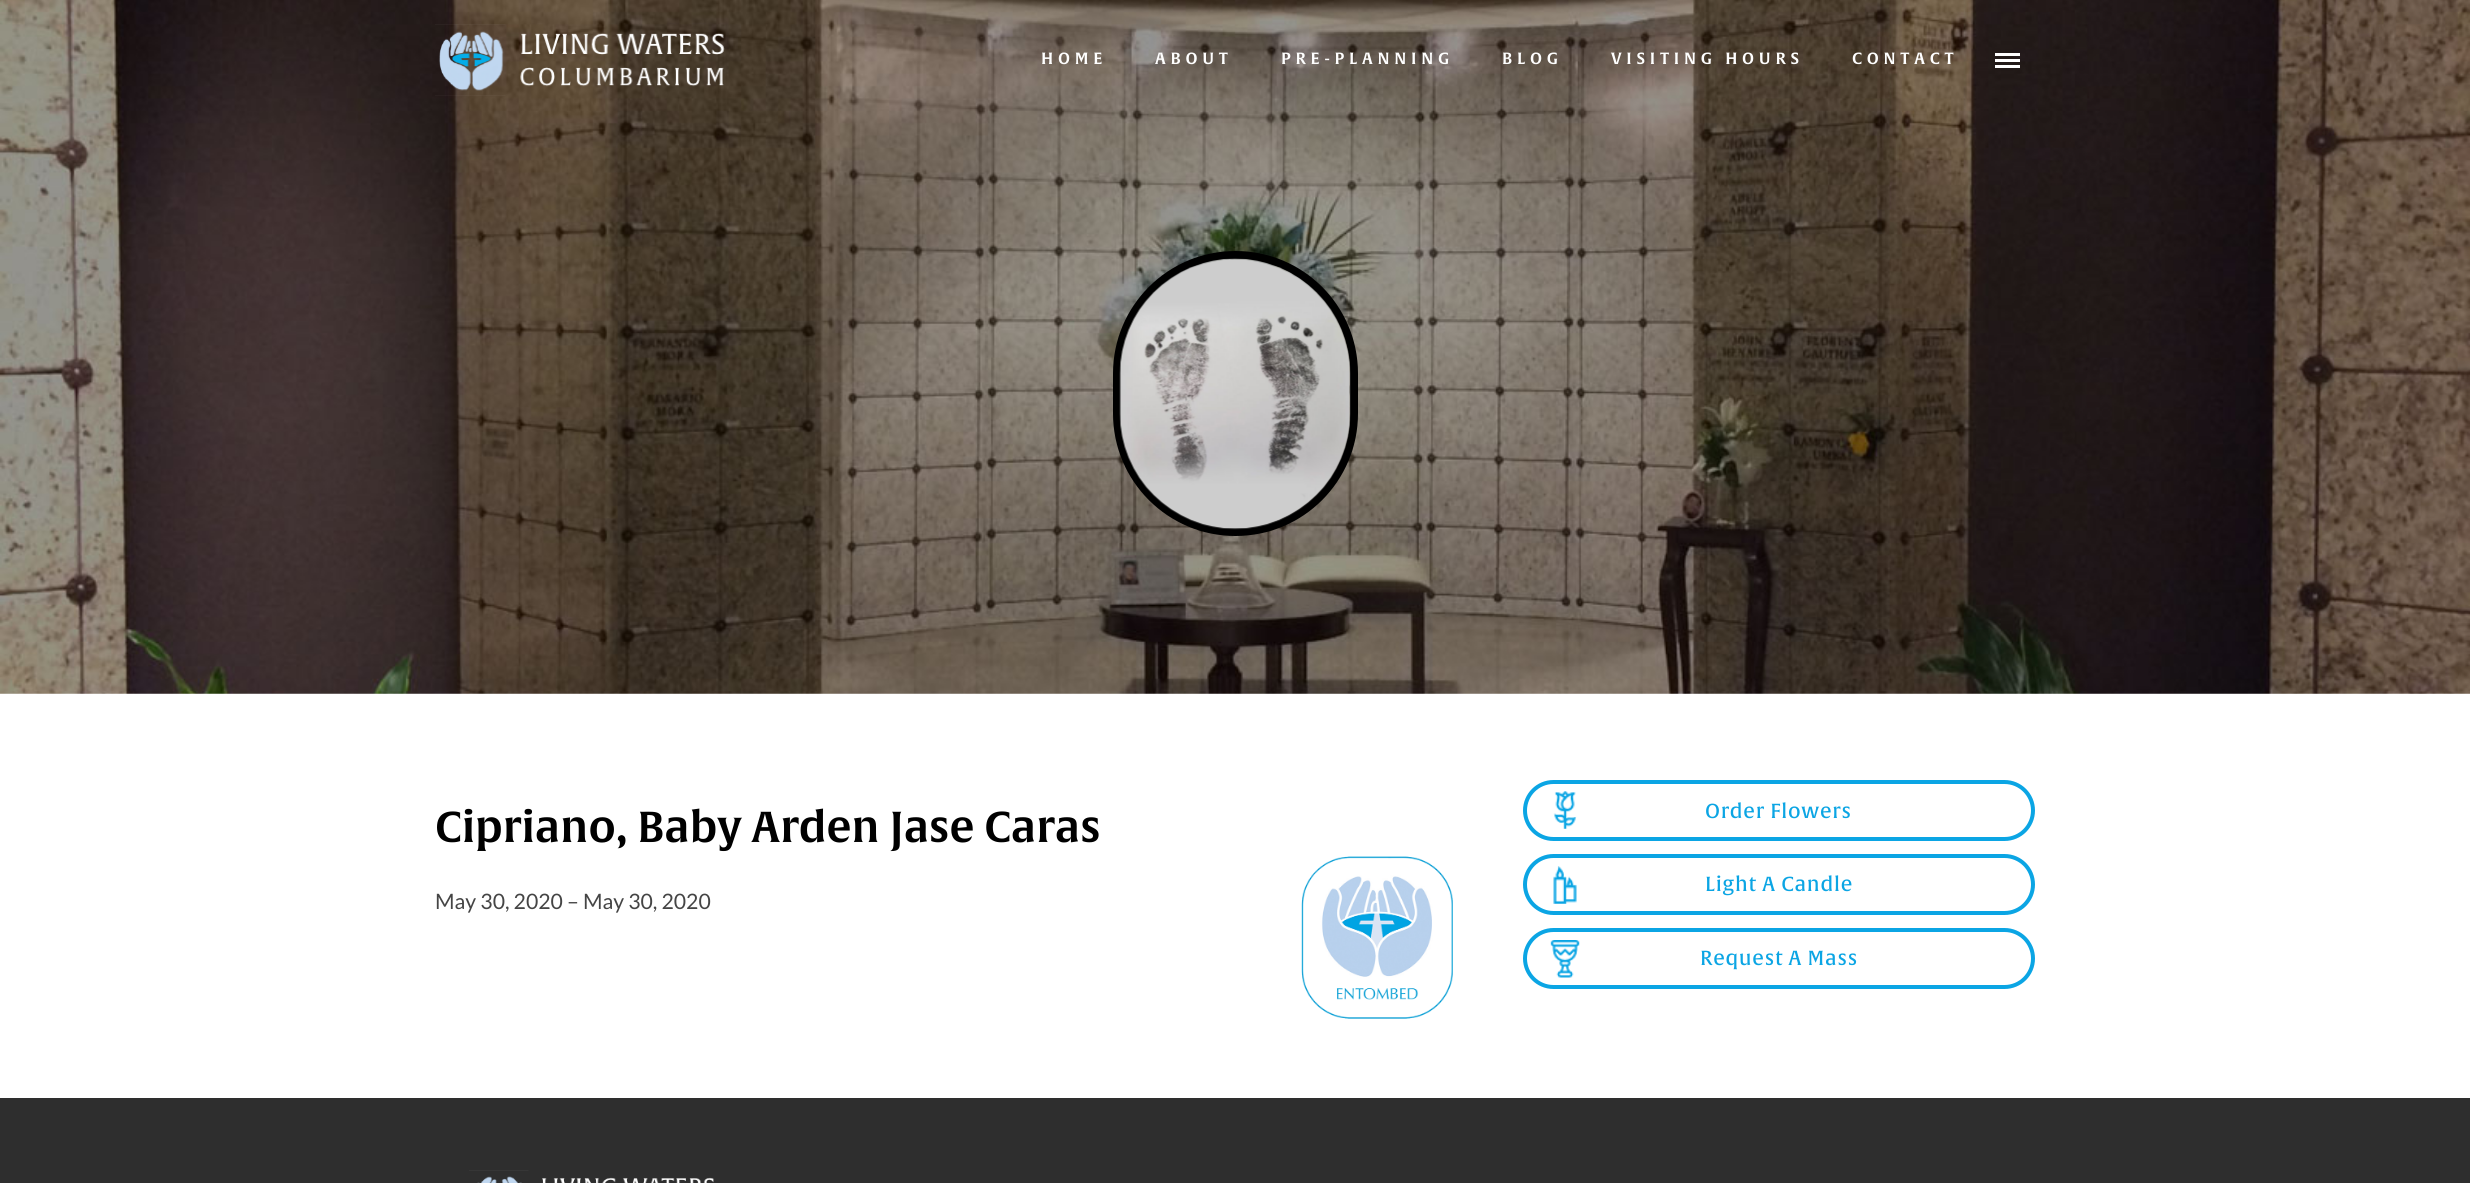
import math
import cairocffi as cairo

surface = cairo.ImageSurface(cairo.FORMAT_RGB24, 2470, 1183)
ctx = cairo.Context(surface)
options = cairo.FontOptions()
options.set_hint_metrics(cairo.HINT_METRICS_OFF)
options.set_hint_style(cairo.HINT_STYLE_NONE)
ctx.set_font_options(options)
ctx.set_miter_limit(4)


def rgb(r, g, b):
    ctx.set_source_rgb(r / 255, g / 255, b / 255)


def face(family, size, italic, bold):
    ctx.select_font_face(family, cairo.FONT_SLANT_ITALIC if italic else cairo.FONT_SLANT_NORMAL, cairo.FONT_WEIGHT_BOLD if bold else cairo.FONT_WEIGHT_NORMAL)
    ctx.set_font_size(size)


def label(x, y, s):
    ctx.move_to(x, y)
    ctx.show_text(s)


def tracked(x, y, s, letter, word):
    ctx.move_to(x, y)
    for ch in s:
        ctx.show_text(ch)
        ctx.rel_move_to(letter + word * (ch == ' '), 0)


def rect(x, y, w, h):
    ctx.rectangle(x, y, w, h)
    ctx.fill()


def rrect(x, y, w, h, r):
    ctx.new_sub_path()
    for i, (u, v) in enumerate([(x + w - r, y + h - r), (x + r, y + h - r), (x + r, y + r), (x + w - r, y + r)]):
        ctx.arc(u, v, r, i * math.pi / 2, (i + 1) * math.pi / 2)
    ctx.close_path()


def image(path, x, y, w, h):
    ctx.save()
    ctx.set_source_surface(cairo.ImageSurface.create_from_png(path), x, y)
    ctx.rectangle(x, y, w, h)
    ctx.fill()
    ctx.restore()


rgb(255, 255, 255)
ctx.paint()
image('image0.png', 0, 0, 2470, 694)
rrect(1117, 255, 237, 277, 118.5)
rgb(0, 0, 0)
ctx.set_line_width(8)
ctx.stroke()
image('image1.png', 1119, 258, 232, 272)
image('image2.png', 435, 24, 290, 72)
face('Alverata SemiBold', 16, 0, 0)
rgb(255, 255, 255)
tracked(1041, 64, 'HOME', 4.75, 0)
tracked(1155, 64, 'ABOUT', 4.75, 0)
tracked(1281, 64, 'PRE-PLANNING', 4.75, 0)
tracked(1502, 64, 'BLOG', 4.75, 0)
tracked(1611, 64, 'VISITING HOURS', 4.75, 0)
tracked(1852, 64, 'CONTACT', 4.75, 0)
rect(1995, 53, 25, 3)
rect(1995, 59, 25, 3)
rect(1995, 65, 25, 3)
face('Alverata SemiBold', 42.5, 0, 0)
rgb(0, 0, 0)
label(435, 842, 'Cipriano, Baby Arden Jase Caras')
image('image3.png', 1301, 856, 152, 163)
face('Lato', 21.25, 0, 0)
rgb(69, 69, 69)
label(435, 909, 'May 30, 2020 – May 30, 2020')
image('image4.png', 1553, 791, 24, 38)
rrect(1525, 782, 508, 57, 28.5)
rgb(11, 165, 228)
ctx.set_line_width(4)
ctx.stroke()
face('Alverata Medium', 20, 0, 0)
tracked(1705, 818, 'Order Flowers', 0.75, 0)
image('image5.png', 1553, 866, 24, 38)
rrect(1525, 856, 508, 57, 28.5)
ctx.stroke()
tracked(1705, 891, 'Light A Candle', 0.75, 0)
image('image6.png', 1550, 940, 30, 38)
rrect(1525, 930, 508, 57, 28.5)
ctx.stroke()
tracked(1700, 965, 'Request A Mass', 0.75, 0)
rgb(46, 46, 46)
rect(0, 1098, 2470, 85)
image('image7.png', 469, 1170, 245, 13)
surface.write_to_png('render.png')
